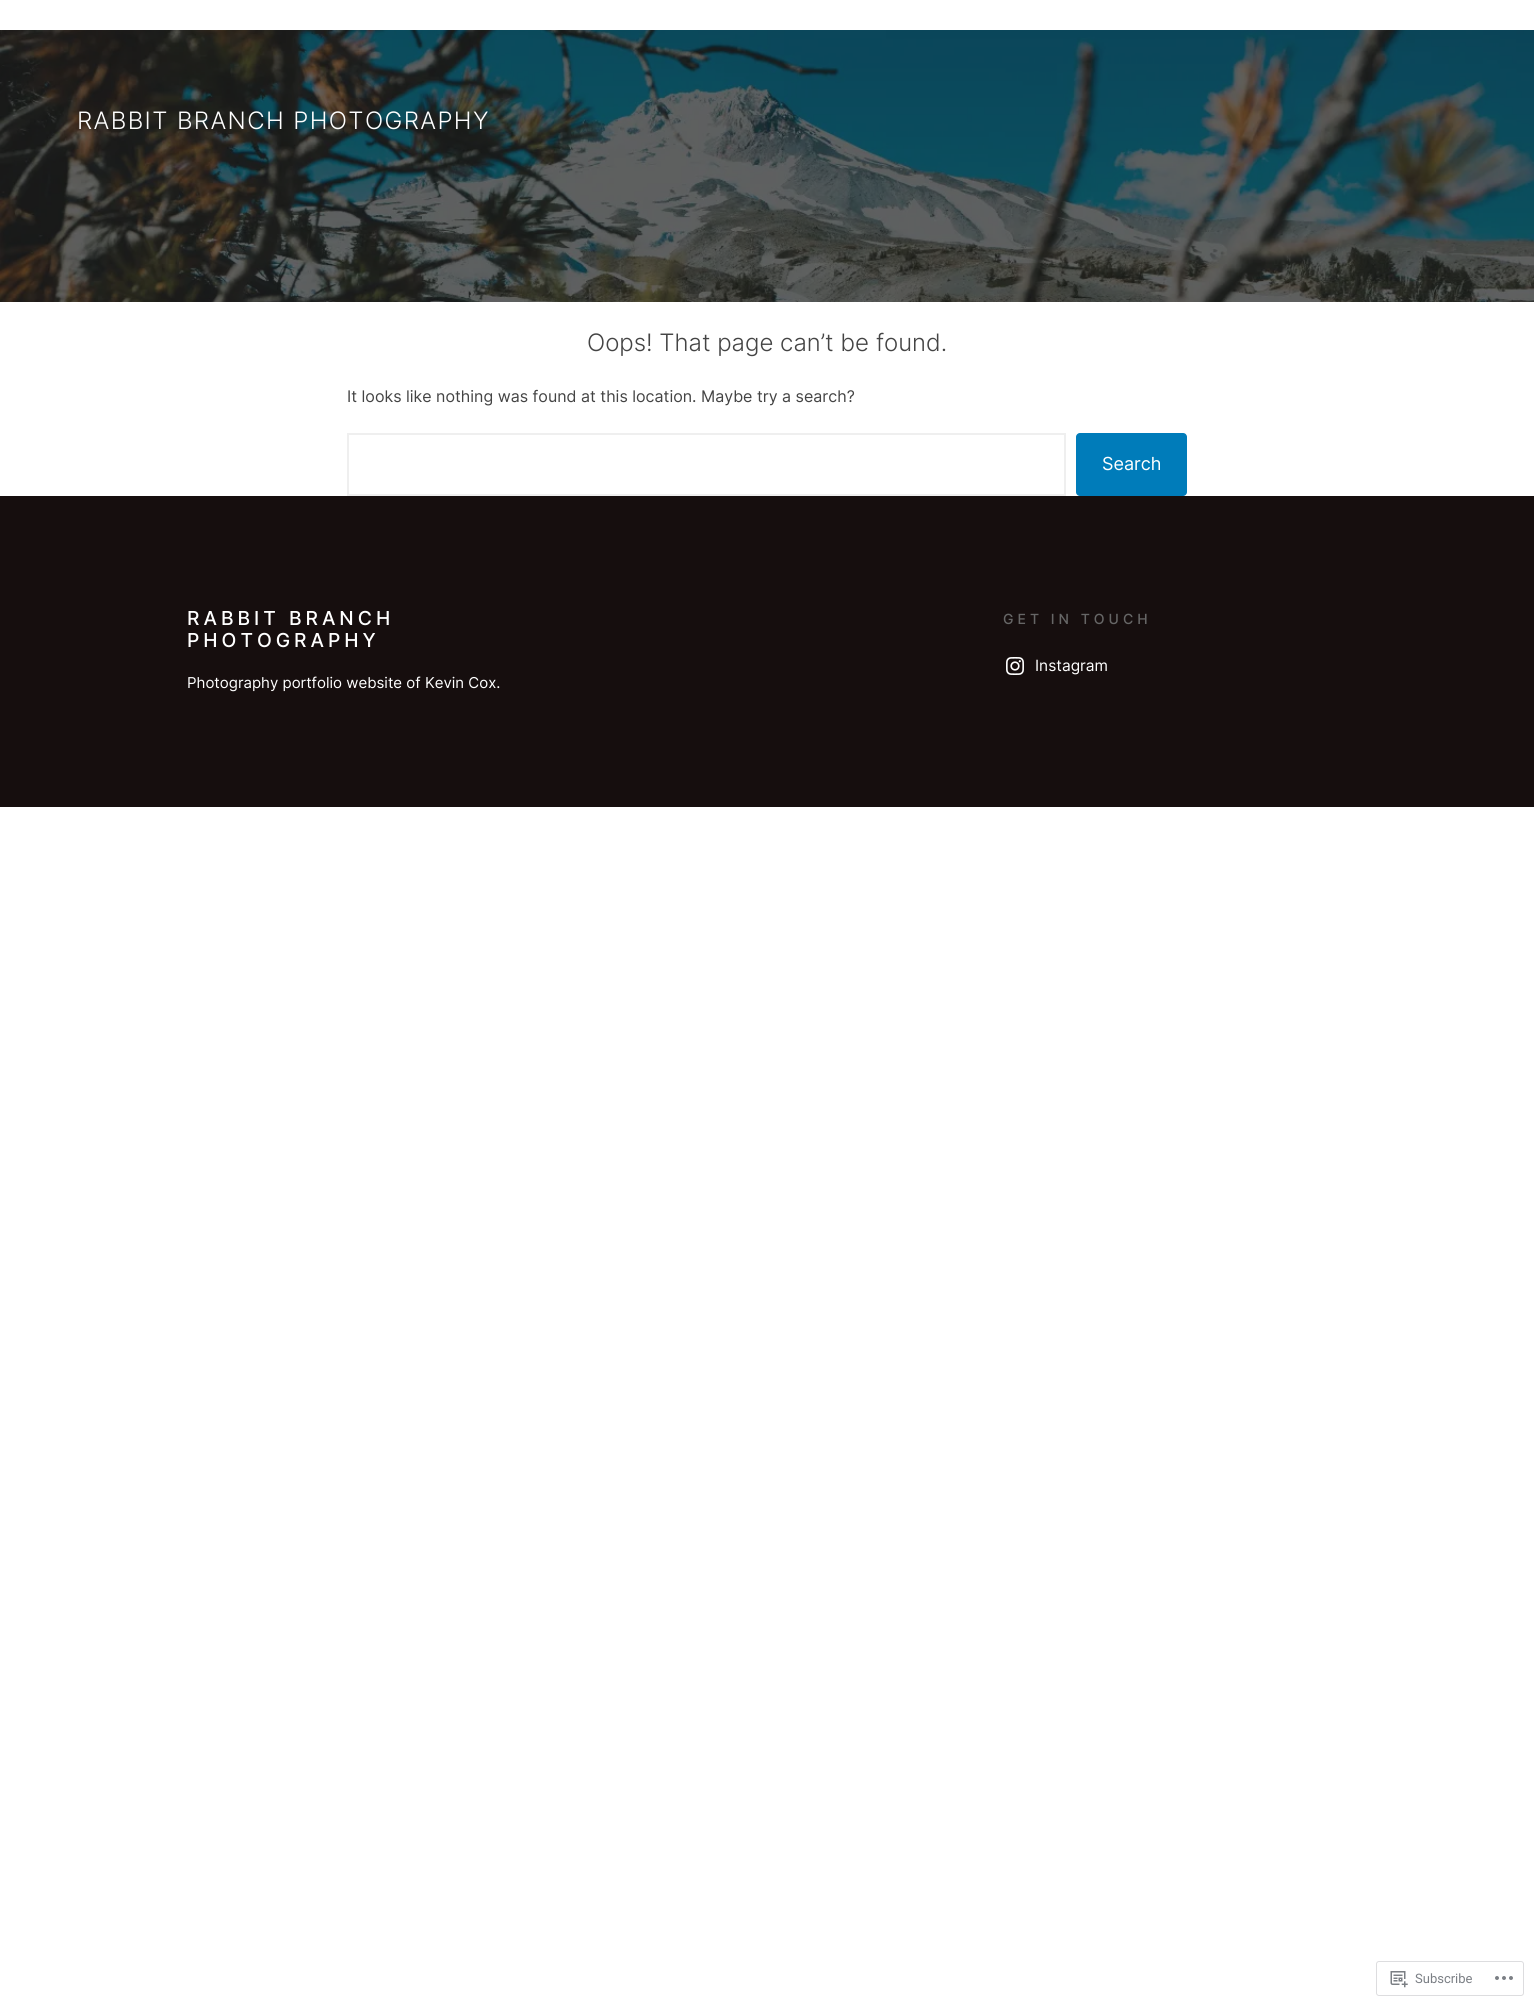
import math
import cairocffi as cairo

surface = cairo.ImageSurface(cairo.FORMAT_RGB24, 1534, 2006)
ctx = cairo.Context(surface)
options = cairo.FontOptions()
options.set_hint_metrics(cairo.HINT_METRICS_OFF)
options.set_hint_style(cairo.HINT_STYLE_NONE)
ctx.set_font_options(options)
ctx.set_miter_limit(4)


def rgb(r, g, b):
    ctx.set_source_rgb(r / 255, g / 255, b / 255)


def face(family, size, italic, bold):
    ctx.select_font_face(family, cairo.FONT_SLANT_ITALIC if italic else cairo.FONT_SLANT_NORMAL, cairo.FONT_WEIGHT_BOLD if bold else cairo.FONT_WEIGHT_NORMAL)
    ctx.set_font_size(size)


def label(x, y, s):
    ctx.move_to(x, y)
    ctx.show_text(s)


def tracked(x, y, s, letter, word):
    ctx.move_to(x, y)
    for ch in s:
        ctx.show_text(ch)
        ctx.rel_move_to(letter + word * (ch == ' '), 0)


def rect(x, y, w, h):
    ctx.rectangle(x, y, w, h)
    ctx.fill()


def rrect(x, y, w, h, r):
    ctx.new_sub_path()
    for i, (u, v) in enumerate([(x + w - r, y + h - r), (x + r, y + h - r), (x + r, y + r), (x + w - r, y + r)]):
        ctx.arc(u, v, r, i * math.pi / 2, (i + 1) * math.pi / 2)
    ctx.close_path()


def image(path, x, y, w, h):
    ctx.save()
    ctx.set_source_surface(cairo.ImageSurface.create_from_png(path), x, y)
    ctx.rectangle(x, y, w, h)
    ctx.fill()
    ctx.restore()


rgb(255, 255, 255)
ctx.paint()
image('image0.png', 0, 30, 1534, 272)
face('Inter Light', 24, 0, 0)
rgb(255, 255, 255)
tracked(77, 129, 'RABBIT BRANCH PHOTOGRAPHY', 1.4, 0)
rgb(68, 68, 68)
label(587, 351, 'Oops! That page can’t be found.')
face('Inter', 16, 0, 0)
label(347, 402, 'It looks like nothing was found at this location. Maybe try a search?')
ctx.rectangle(348, 434, 717, 61)
rgb(239, 239, 239)
ctx.stroke()
rgb(0, 124, 186)
rrect(1076, 433, 111, 63, 4)
ctx.fill()
face('Inter', 18, 0, 0)
rgb(255, 255, 255)
label(1102, 470, 'Search')
rgb(22, 14, 14)
rect(0, 496, 1534, 311)
face('Inter Medium', 19.25, 0, 0)
rgb(255, 255, 255)
tracked(187, 625, 'RABBIT BRANCH', 4, 0)
tracked(187, 647, 'PHOTOGRAPHY', 4, 0)
face('Inter', 15, 0, 0)
label(187, 688, 'Photography portfolio website of Kevin Cox.')
face('Inter Medium', 14, 0, 0)
rgb(102, 102, 102)
tracked(1003, 624, 'GET IN TOUCH', 4, 0)
image('image1.png', 1006, 657, 18, 18)
face('Inter', 15.5, 0, 0)
rgb(255, 255, 255)
label(1035, 671, 'Instagram')
rrect(1376.5, 1961.5, 147, 34, 2.5)
rgb(221, 221, 223)
ctx.set_line_width(1)
ctx.stroke()
image('image2.png', 1390, 1971, 18, 17)
face('Roboto', 13, 0, 0)
rgb(123, 127, 133)
label(1415, 1983, 'Subscribe')
image('image3.png', 1495, 1976, 18, 4)
surface.write_to_png('render.png')
